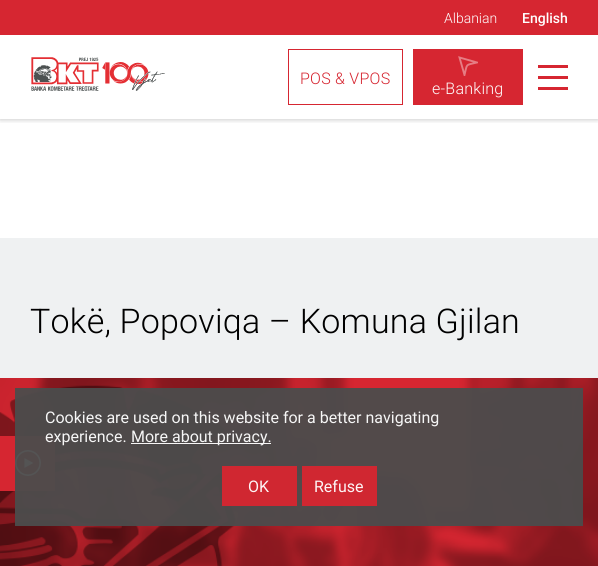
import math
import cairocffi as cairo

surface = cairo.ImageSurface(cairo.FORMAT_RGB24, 598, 566)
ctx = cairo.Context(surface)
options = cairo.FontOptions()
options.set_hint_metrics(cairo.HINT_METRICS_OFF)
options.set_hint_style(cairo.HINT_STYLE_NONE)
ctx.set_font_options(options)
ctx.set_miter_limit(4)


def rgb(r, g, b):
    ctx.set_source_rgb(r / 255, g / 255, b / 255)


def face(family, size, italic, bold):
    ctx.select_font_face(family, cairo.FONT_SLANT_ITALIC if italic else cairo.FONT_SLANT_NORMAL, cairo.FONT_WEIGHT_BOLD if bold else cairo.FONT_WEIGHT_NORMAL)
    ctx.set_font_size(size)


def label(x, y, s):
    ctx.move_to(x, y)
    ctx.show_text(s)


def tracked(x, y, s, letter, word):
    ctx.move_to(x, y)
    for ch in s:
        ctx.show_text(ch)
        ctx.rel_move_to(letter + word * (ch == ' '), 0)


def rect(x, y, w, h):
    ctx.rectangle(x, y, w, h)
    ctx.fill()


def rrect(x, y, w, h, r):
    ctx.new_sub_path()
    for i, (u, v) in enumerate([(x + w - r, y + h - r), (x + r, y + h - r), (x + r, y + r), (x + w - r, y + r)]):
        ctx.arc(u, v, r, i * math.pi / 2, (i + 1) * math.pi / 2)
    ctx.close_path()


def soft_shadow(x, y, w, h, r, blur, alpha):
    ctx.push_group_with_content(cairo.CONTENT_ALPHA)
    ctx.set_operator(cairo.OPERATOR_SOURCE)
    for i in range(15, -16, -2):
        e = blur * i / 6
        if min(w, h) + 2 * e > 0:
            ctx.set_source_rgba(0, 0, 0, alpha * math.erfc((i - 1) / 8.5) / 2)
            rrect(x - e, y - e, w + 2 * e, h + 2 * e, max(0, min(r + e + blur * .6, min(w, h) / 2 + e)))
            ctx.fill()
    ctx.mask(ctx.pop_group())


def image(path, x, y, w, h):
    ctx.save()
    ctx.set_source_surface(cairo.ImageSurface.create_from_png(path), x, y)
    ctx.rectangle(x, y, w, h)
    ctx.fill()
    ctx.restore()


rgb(255, 255, 255)
ctx.paint()
ctx.save()
ctx.rectangle(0, 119, 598, 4)
ctx.clip()
rgb(0, 0, 0)
soft_shadow(0, 1, 598, 119, 0, 2.5, 0.2)
ctx.restore()
rgb(214, 38, 49)
rect(0, 0, 598, 35)
face('Roboto Light', 14, 0, 0)
rgb(255, 255, 255)
label(444, 23, 'Albanian')
face('Roboto Medium', 14, 0, 0)
label(522, 23, 'English')
image('image0.png', 31, 57, 134, 34)
ctx.rectangle(288.5, 49.5, 114, 55)
rgb(214, 38, 49)
ctx.set_line_width(1)
ctx.stroke()
face('Roboto Light', 16, 0, 0)
tracked(300, 84, 'POS & VPOS', 0.25, 0)
rect(538, 65, 30, 3)
rect(538, 76, 30, 3)
rect(538, 87, 30, 3)
rect(413, 49, 110, 56)
ctx.save()
ctx.rectangle(458, 56, 20, 20)
ctx.clip()
ctx.new_path()
ctx.move_to(464.5, 75)
ctx.curve_to(467.5, 63, 465, 65.5, 477, 62.5)
ctx.line_to(459.5, 57.5)
ctx.close_path()
rgb(230, 125, 132)
ctx.set_line_width(1.9)
ctx.stroke()
ctx.restore()
rgb(255, 255, 255)
tracked(432, 94, 'e-Banking', 0.25, 0)
rgb(239, 241, 242)
rect(0, 238, 598, 140)
face('Roboto Light', 34, 0, 0)
rgb(0, 0, 0)
tracked(30, 333, 'Tokë, Popoviqa – Komuna Gjilan', 0.2, 0)
image('image1.png', 0, 378, 598, 188)
rgb(214, 38, 49)
rect(0, 436, 55, 55)
image('image2.png', 15, 450, 26, 26)
ctx.set_source_rgba(0.298, 0.298, 0.298, 0.95)
rect(15, 388, 568, 138)
face('Roboto', 16, 0, 0)
rgb(246, 246, 246)
label(45, 423, 'Cookies are used on this website for a better navigating')
label(45, 442, 'experience.')
ctx.set_source_rgba(1, 1, 1, 0.95)
rect(131, 443, 140, 1)
rgb(246, 246, 246)
label(131, 442, 'More about privacy.')
ctx.set_source_rgba(0.839, 0.149, 0.192, 0.95)
rect(222, 466, 75, 40)
rgb(253, 244, 245)
label(248, 492, 'OK')
ctx.set_source_rgba(0.839, 0.149, 0.192, 0.95)
rect(302, 466, 75, 40)
rgb(253, 244, 245)
label(314, 492, 'Refuse')
surface.write_to_png('render.png')
